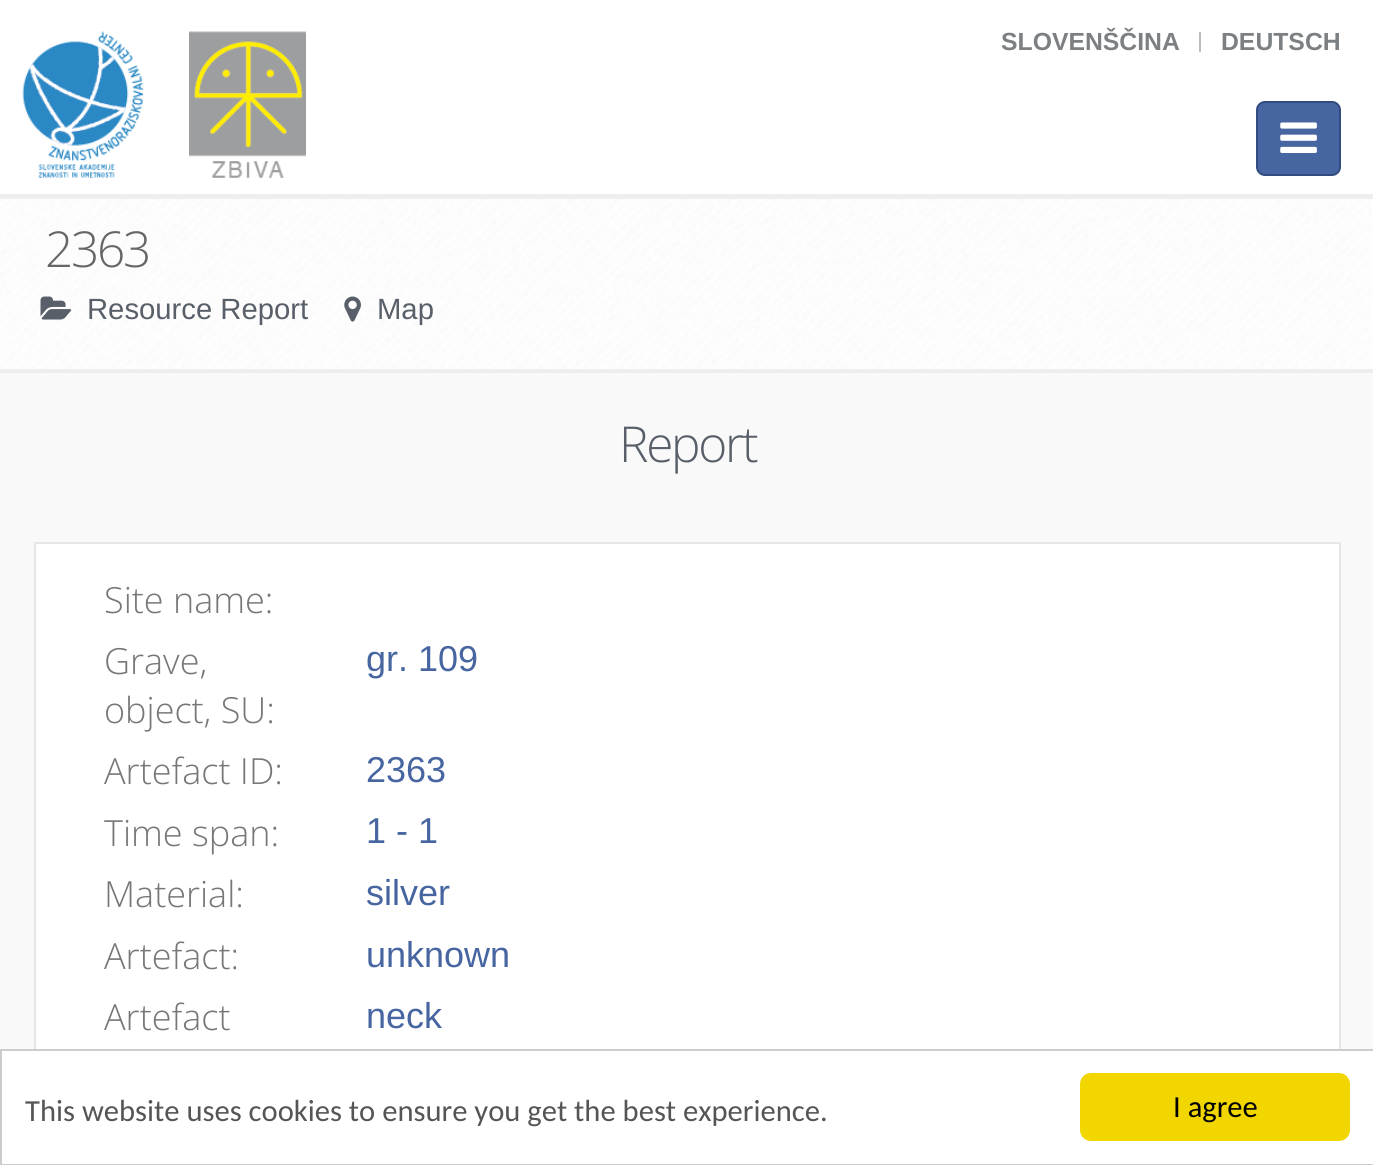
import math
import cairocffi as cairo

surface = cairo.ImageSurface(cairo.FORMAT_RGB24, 1373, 1165)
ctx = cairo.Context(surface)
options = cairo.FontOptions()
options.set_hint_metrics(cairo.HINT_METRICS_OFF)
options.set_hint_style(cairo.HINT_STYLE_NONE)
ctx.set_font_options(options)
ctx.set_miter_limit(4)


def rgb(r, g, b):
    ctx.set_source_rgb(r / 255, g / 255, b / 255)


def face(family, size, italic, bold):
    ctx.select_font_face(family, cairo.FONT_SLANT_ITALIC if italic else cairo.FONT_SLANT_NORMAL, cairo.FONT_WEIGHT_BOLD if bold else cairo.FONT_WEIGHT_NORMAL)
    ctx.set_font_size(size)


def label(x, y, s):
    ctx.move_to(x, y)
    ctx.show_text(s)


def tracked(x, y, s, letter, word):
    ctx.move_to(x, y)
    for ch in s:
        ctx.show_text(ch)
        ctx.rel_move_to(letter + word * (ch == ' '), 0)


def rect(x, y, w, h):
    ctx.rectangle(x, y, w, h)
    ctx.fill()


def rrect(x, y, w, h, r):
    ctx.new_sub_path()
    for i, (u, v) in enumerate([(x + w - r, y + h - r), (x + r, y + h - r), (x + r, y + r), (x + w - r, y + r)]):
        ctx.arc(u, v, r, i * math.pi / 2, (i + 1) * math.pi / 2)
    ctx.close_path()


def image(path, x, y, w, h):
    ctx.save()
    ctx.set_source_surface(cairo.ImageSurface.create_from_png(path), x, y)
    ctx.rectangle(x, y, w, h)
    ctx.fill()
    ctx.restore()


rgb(255, 255, 255)
ctx.paint()
rgb(238, 238, 238)
rect(0, 194, 1373, 5)
face('Liberation Sans', 24.75, 0, 1)
rgb(124, 128, 130)
label(1001, 50, 'SLOVENŠČINA')
rgb(187, 187, 187)
rect(1199, 32, 2, 20)
rgb(124, 128, 130)
label(1221, 50, 'DEUTSCH')
image('image0.png', 22, 31, 122, 147)
image('image1.png', 189, 31, 117, 147)
rgb(71, 101, 160)
rrect(1257, 102, 83, 73, 8)
ctx.fill_preserve()
rgb(50, 76, 128)
ctx.stroke()
image('image2.png', 1280, 122, 37, 31)
image('image3.png', 0, 199, 1372, 170)
rgb(238, 238, 238)
rect(0, 369, 1373, 4)
face('Open Sans Light', 49.5, 0, 0)
rgb(102, 102, 102)
tracked(45, 267, '2363', -2.25, 0)
image('image4.png', 40, 296, 32, 24)
face('Liberation Sans', 29.25, 0, 0)
rgb(88, 95, 105)
label(87, 319, 'Resource Report')
image('image5.png', 344, 296, 17, 26)
label(377, 319, 'Map')
rgb(249, 249, 249)
rect(0, 373, 1373, 676)
face('Open Sans Light', 49.5, 0, 0)
rgb(88, 95, 105)
tracked(619, 462, 'Report', -2.25, 0)
rgb(255, 255, 255)
rect(36, 544, 1303, 505)
ctx.rectangle(35, 543, 1305, 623)
rgb(230, 230, 230)
ctx.stroke()
face('Open Sans Light', 36, 0, 0)
rgb(119, 119, 119)
label(104, 613, 'Site name:')
label(104, 674, 'Grave,')
label(104, 723, 'object, SU:')
face('Liberation Sans', 36, 0, 0)
rgb(71, 101, 160)
label(366, 671, 'gr. 109')
face('Open Sans Light', 36, 0, 0)
rgb(119, 119, 119)
label(104, 784, 'Artefact ID:')
face('Liberation Sans', 36, 0, 0)
rgb(71, 101, 160)
label(366, 782, '2363')
face('Open Sans Light', 36, 0, 0)
rgb(119, 119, 119)
label(104, 846, 'Time span:')
face('Liberation Sans', 36, 0, 0)
rgb(71, 101, 160)
label(366, 843, '1 - 1')
face('Open Sans Light', 36, 0, 0)
rgb(119, 119, 119)
label(104, 907, 'Material:')
face('Liberation Sans', 36, 0, 0)
rgb(71, 101, 160)
label(366, 905, 'silver')
face('Open Sans Light', 36, 0, 0)
rgb(119, 119, 119)
label(104, 969, 'Artefact:')
face('Liberation Sans', 36, 0, 0)
rgb(71, 101, 160)
label(366, 967, 'unknown')
face('Open Sans Light', 36, 0, 0)
rgb(119, 119, 119)
label(104, 1030, 'Artefact')
face('Liberation Sans', 36, 0, 0)
rgb(71, 101, 160)
label(366, 1028, 'neck')
rgb(255, 255, 255)
rect(34, 1051, 1307, 113)
ctx.rectangle(1, 1050, 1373, 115)
rgb(204, 204, 204)
ctx.stroke()
face('Carlito', 30.6, 0, 0)
rgb(85, 85, 85)
label(25, 1121, 'This website uses cookies to ensure you get the best experience.')
rgb(241, 214, 0)
rrect(1080, 1073, 270, 68, 11)
ctx.fill()
rgb(0, 0, 0)
label(1173, 1117, 'I agree')
surface.write_to_png('render.png')
